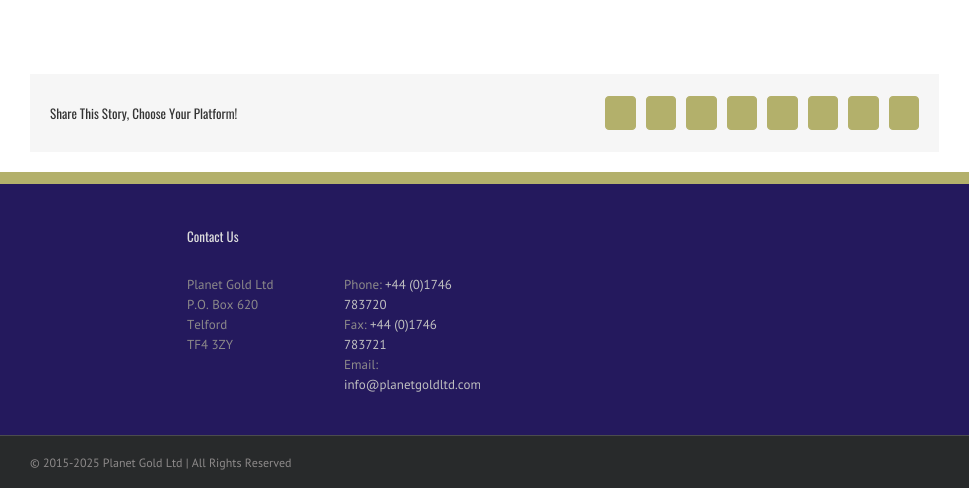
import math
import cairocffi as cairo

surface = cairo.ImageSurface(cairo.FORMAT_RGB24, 969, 488)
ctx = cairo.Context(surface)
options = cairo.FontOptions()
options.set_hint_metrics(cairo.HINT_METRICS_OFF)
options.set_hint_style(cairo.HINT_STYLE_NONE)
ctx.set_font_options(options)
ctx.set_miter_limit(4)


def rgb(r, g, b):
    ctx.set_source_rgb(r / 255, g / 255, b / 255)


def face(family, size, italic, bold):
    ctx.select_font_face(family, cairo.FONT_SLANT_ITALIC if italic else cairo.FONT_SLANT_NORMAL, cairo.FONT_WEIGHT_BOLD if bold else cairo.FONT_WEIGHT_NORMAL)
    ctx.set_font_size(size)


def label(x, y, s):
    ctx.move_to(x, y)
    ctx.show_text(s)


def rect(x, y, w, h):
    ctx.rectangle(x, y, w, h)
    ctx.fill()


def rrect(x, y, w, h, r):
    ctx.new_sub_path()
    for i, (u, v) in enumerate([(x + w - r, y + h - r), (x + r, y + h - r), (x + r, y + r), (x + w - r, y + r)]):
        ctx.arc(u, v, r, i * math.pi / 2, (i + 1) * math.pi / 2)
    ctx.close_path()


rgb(255, 255, 255)
ctx.paint()
rgb(246, 246, 246)
rect(30, 74, 909, 78)
face('Oswald', 13, 0, 0)
rgb(51, 51, 51)
label(50, 119, 'Share This Story, Choose Your Platform!')
rgb(179, 176, 107)
rrect(605.5, 96.5, 30, 33, 3.5)
ctx.fill_preserve()
ctx.set_line_width(1)
ctx.stroke()
rrect(646.5, 96.5, 29, 33, 3.5)
ctx.fill_preserve()
ctx.stroke()
rrect(686.5, 96.5, 30, 33, 3.5)
ctx.fill_preserve()
ctx.stroke()
rrect(727.5, 96.5, 29, 33, 3.5)
ctx.fill_preserve()
ctx.stroke()
rrect(767.5, 96.5, 30, 33, 3.5)
ctx.fill_preserve()
ctx.stroke()
rrect(808.5, 96.5, 29, 33, 3.5)
ctx.fill_preserve()
ctx.stroke()
rrect(848.5, 96.5, 30, 33, 3.5)
ctx.fill_preserve()
ctx.stroke()
rrect(889.5, 96.5, 29, 33, 3.5)
ctx.fill_preserve()
ctx.stroke()
rgb(36, 25, 93)
rect(0, 184, 969, 251)
rgb(179, 176, 107)
rect(0, 172, 969, 12)
rgb(221, 221, 221)
label(187, 242, 'Contact Us')
face('PT Sans', 13, 0, 0)
rgb(140, 137, 137)
label(187, 289, 'Planet Gold Ltd')
label(187, 309, 'P.O. Box 620')
label(187, 329, 'Telford')
label(187, 349, 'TF4 3ZY')
label(344, 289, 'Phone:')
rgb(191, 191, 191)
label(385, 289, '+44 (0)1746')
label(344, 309, '783720')
rgb(140, 137, 137)
label(344, 329, 'Fax:')
rgb(191, 191, 191)
label(370, 329, '+44 (0)1746')
label(344, 349, '783721')
rgb(140, 137, 137)
label(344, 369, 'Email:')
rgb(191, 191, 191)
label(344, 389, 'info@planetgoldltd.com')
rgb(40, 42, 43)
rect(0, 436, 969, 52)
rgb(75, 76, 77)
rect(0, 435, 969, 1)
face('PT Sans', 12, 0, 0)
rgb(140, 137, 137)
label(30, 467, '© 2015-2025 Planet Gold Ltd | All Rights Reserved')
surface.write_to_png('render.png')
